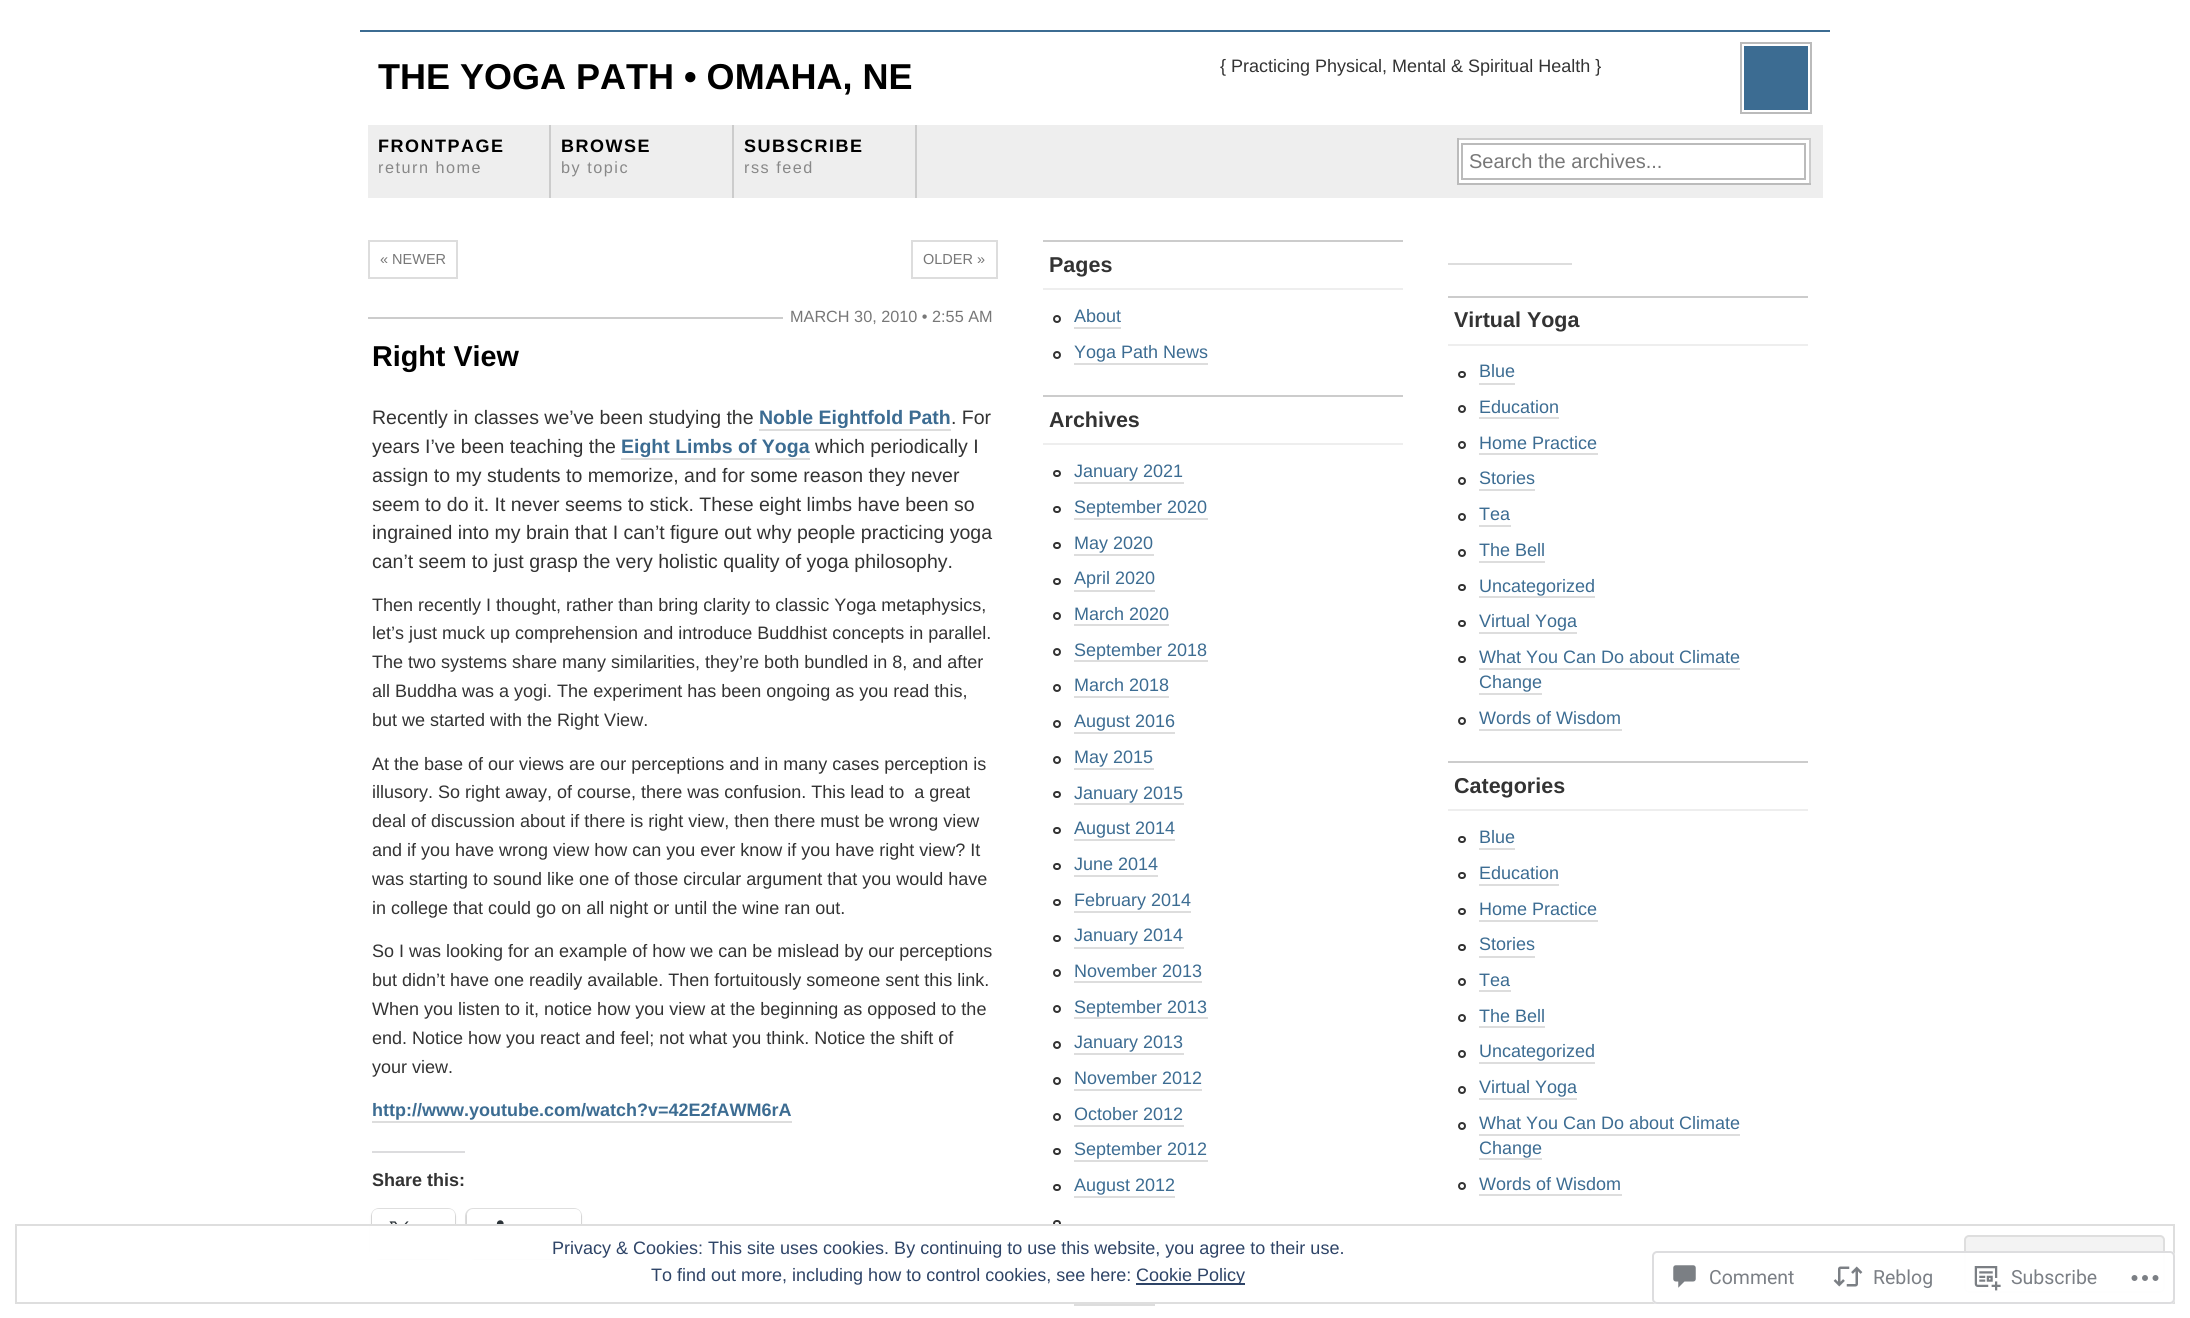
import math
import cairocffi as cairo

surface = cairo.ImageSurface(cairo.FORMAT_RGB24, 2190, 1318)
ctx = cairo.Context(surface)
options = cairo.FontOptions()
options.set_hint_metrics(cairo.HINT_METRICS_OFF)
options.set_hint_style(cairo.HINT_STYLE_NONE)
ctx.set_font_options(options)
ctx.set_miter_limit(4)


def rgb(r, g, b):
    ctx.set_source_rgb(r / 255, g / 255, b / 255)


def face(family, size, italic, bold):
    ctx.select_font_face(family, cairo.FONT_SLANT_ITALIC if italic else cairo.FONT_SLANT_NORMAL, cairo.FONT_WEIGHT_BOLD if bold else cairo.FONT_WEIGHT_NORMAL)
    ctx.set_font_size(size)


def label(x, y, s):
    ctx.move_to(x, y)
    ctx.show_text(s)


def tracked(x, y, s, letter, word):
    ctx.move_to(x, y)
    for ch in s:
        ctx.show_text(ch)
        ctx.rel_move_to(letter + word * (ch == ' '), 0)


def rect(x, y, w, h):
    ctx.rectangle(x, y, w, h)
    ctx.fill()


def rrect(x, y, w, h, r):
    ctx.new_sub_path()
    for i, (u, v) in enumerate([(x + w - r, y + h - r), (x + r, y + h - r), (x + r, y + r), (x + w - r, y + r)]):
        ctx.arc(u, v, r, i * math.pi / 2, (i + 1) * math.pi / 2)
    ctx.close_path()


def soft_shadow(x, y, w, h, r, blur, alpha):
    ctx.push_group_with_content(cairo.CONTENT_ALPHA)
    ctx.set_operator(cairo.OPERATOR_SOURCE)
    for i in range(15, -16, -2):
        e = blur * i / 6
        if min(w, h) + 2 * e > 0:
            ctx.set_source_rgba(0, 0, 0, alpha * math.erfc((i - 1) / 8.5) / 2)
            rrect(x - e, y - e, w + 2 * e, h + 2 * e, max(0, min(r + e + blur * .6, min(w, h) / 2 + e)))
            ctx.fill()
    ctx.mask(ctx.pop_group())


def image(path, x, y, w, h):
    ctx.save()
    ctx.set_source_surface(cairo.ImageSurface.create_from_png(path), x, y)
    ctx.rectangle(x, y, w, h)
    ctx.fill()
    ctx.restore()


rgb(255, 255, 255)
ctx.paint()
rgb(60, 108, 146)
rect(360, 30, 1470, 2)
face('Liberation Sans', 36, 0, 1)
rgb(0, 0, 0)
label(378, 89, 'THE YOGA PATH • OMAHA, NE')
face('Liberation Sans', 18, 0, 0)
rgb(51, 51, 51)
label(1220, 72, '{ Practicing Physical, Mental & Spiritual Health }')
ctx.rectangle(1741, 43, 70, 70)
rgb(187, 187, 187)
ctx.stroke()
rgb(60, 108, 146)
rect(1744, 46, 64, 64)
rgb(238, 238, 238)
rect(368, 125, 1455, 73)
rgb(204, 204, 204)
rect(549, 125, 2, 73)
face('Liberation Sans', 18, 0, 1)
rgb(0, 0, 0)
tracked(378, 152, 'FRONTPAGE', 1.5, 0)
face('Liberation Sans', 16.25, 0, 0)
rgb(136, 136, 136)
tracked(378, 173, 'return home', 1.5, 0)
rgb(204, 204, 204)
rect(732, 125, 2, 73)
face('Liberation Sans', 18, 0, 1)
rgb(0, 0, 0)
tracked(561, 152, 'BROWSE', 1.5, 0)
face('Liberation Sans', 16.25, 0, 0)
rgb(136, 136, 136)
tracked(561, 173, 'by topic', 1.5, 0)
rgb(204, 204, 204)
rect(915, 125, 2, 73)
face('Liberation Sans', 18, 0, 1)
rgb(0, 0, 0)
tracked(744, 152, 'SUBSCRIBE', 1.5, 0)
face('Liberation Sans', 16.25, 0, 0)
rgb(136, 136, 136)
tracked(744, 173, 'rss feed', 1.5, 0)
rgb(255, 255, 255)
rect(1459, 140, 350, 43)
rgb(204, 204, 204)
rect(1457, 138, 354, 2)
rect(1809, 138, 2, 47)
rgb(187, 187, 187)
rect(1457, 183, 354, 2)
rect(1457, 138, 2, 47)
ctx.rectangle(1462, 144, 343, 35)
ctx.stroke()
face('Liberation Sans', 20, 0, 0)
rgb(119, 119, 119)
label(1469, 168, 'Search the archives...')
ctx.rectangle(369, 241, 88, 37)
rgb(221, 221, 221)
ctx.stroke()
face('Liberation Sans', 14.5, 0, 0)
rgb(119, 119, 119)
label(380, 264, '« NEWER')
ctx.rectangle(912, 241, 85, 37)
rgb(221, 221, 221)
ctx.stroke()
rgb(119, 119, 119)
label(923, 264, 'OLDER »')
rgb(204, 204, 204)
rect(368, 317, 415, 2)
face('Liberation Sans', 16.25, 0, 0)
rgb(119, 119, 119)
label(790, 322, 'MARCH 30, 2010 • 2:55 AM')
face('Liberation Sans', 28.75, 0, 1)
rgb(0, 0, 0)
label(372, 366, 'Right View')
face('Liberation Sans', 19.5, 0, 0)
rgb(51, 51, 51)
label(372, 424, 'Recently in classes we’ve been studying the')
face('Liberation Sans', 19.5, 0, 1)
rgb(60, 108, 146)
label(759, 424, 'Noble Eightfold Path')
rgb(221, 221, 221)
rect(759, 429, 192, 2)
face('Liberation Sans', 19.5, 0, 0)
rgb(51, 51, 51)
label(951, 424, '. For')
label(372, 453, 'years I’ve been teaching the')
face('Liberation Sans', 19.5, 0, 1)
rgb(60, 108, 146)
label(621, 453, 'Eight Limbs of Yoga')
rgb(221, 221, 221)
rect(621, 458, 189, 2)
face('Liberation Sans', 19.5, 0, 0)
rgb(51, 51, 51)
label(815, 453, 'which periodically I')
label(372, 482, 'assign to my students to memorize, and for some reason they never')
label(372, 511, 'seem to do it. It never seems to stick. These eight limbs have been so')
label(372, 539, 'ingrained into my brain that I can’t figure out why people practicing yoga')
label(372, 568, 'can’t seem to just grasp the very holistic quality of yoga philosophy.')
face('Liberation Sans', 18, 0, 0)
label(372, 611, 'Then recently I thought, rather than bring clarity to classic Yoga metaphysics,')
label(372, 639, 'let’s just muck up comprehension and introduce Buddhist concepts in parallel.')
label(372, 668, 'The two systems share many similarities, they’re both bundled in 8, and after')
label(372, 697, 'all Buddha was a yogi. The experiment has been ongoing as you read this,')
label(372, 726, 'but we started with the Right View.')
label(372, 770, 'At the base of our views are our perceptions and in many cases perception is')
label(372, 798, 'illusory. So right away, of course, there was confusion. This lead to  a great')
label(372, 827, 'deal of discussion about if there is right view, then there must be wrong view')
label(372, 856, 'and if you have wrong view how can you ever know if you have right view? It')
label(372, 885, 'was starting to sound like one of those circular argument that you would have')
label(372, 914, 'in college that could go on all night or until the wine ran out.')
label(372, 957, 'So I was looking for an example of how we can be mislead by our perceptions')
label(372, 986, 'but didn’t have one readily available. Then fortuitously someone sent this link.')
label(372, 1015, 'When you listen to it, notice how you view at the beginning as opposed to the')
label(372, 1044, 'end. Notice how you react and feel; not what you think. Notice the shift of')
label(372, 1073, 'your view.')
face('Liberation Sans', 18, 0, 1)
rgb(60, 108, 146)
label(372, 1116, 'http://www.youtube.com/watch?v=42E2fAWM6rA')
rgb(221, 221, 221)
rect(372, 1121, 420, 2)
rgb(220, 220, 222)
rect(372, 1151, 93, 2)
rgb(51, 51, 51)
label(372, 1186, 'Share this:')
rrect(372, 1209, 83, 47, 7)
rgb(224, 224, 224)
ctx.stroke()
rgb(0, 0, 0)
soft_shadow(372, 1211, 83, 46, 6, 1.5, 0.12)
rgb(255, 255, 255)
rrect(372, 1209, 83, 47, 6)
ctx.fill()
image('image0.png', 389, 1221, 20, 3)
rrect(466, 1209, 115, 47, 7)
rgb(224, 224, 224)
ctx.stroke()
rgb(0, 0, 0)
soft_shadow(467, 1211, 114, 46, 6, 1.5, 0.12)
rgb(255, 255, 255)
rrect(467, 1209, 114, 47, 6)
ctx.fill()
image('image1.png', 496, 1220, 8, 4)
rgb(204, 204, 204)
rect(1043, 240, 360, 2)
rgb(238, 238, 238)
rect(1043, 288, 360, 2)
face('Liberation Sans', 21.5, 0, 1)
rgb(51, 51, 51)
label(1049, 272, 'Pages')
ctx.new_path()
ctx.arc(1057, 319, 3, 0, 2 * math.pi)
ctx.stroke()
face('Liberation Sans', 18, 0, 0)
rgb(60, 108, 146)
label(1074, 322, 'About')
rgb(221, 221, 221)
rect(1074, 327, 47, 2)
ctx.new_path()
ctx.arc(1057, 355, 3, 0, 2 * math.pi)
rgb(51, 51, 51)
ctx.stroke()
rgb(60, 108, 146)
label(1074, 358, 'Yoga Path News')
rgb(221, 221, 221)
rect(1074, 363, 134, 2)
rgb(204, 204, 204)
rect(1043, 395, 360, 2)
rgb(238, 238, 238)
rect(1043, 443, 360, 2)
face('Liberation Sans', 21.5, 0, 1)
rgb(51, 51, 51)
label(1049, 427, 'Archives')
rrect(1054, 471, 6, 5, 2.5)
ctx.stroke()
face('Liberation Sans', 18, 0, 0)
rgb(60, 108, 146)
label(1074, 477, 'January 2021')
rgb(221, 221, 221)
rect(1074, 482, 110, 2)
rrect(1054, 507, 6, 5, 2.5)
rgb(51, 51, 51)
ctx.stroke()
rgb(60, 108, 146)
label(1074, 513, 'September 2020')
rgb(221, 221, 221)
rect(1074, 518, 134, 2)
rrect(1054, 543, 6, 5, 2.5)
rgb(51, 51, 51)
ctx.stroke()
rgb(60, 108, 146)
label(1074, 549, 'May 2020')
rgb(221, 221, 221)
rect(1074, 554, 80, 2)
rrect(1054, 579, 6, 5, 2.5)
rgb(51, 51, 51)
ctx.stroke()
rgb(60, 108, 146)
label(1074, 584, 'April 2020')
rgb(221, 221, 221)
rect(1074, 590, 81, 2)
ctx.new_path()
ctx.arc(1057, 616, 3, 0, 2 * math.pi)
rgb(51, 51, 51)
ctx.stroke()
rgb(60, 108, 146)
label(1074, 620, 'March 2020')
rgb(221, 221, 221)
rect(1074, 624, 95, 2)
ctx.new_path()
ctx.arc(1057, 652, 3, 0, 2 * math.pi)
rgb(51, 51, 51)
ctx.stroke()
rgb(60, 108, 146)
label(1074, 656, 'September 2018')
rgb(221, 221, 221)
rect(1074, 660, 134, 2)
ctx.new_path()
ctx.arc(1057, 688, 3, 0, 2 * math.pi)
rgb(51, 51, 51)
ctx.stroke()
rgb(60, 108, 146)
label(1074, 691, 'March 2018')
rgb(221, 221, 221)
rect(1074, 696, 95, 2)
ctx.new_path()
ctx.arc(1057, 724, 3, 0, 2 * math.pi)
rgb(51, 51, 51)
ctx.stroke()
rgb(60, 108, 146)
label(1074, 727, 'August 2016')
rgb(221, 221, 221)
rect(1074, 732, 101, 2)
ctx.new_path()
ctx.arc(1057, 760, 3, 0, 2 * math.pi)
rgb(51, 51, 51)
ctx.stroke()
rgb(60, 108, 146)
label(1074, 763, 'May 2015')
rgb(221, 221, 221)
rect(1074, 768, 80, 2)
rrect(1054, 792, 6, 5, 2.5)
rgb(51, 51, 51)
ctx.stroke()
rgb(60, 108, 146)
label(1074, 799, 'January 2015')
rgb(221, 221, 221)
rect(1074, 803, 110, 2)
rrect(1054, 828, 6, 5, 2.5)
rgb(51, 51, 51)
ctx.stroke()
rgb(60, 108, 146)
label(1074, 834, 'August 2014')
rgb(221, 221, 221)
rect(1074, 839, 101, 2)
rrect(1054, 864, 6, 5, 2.5)
rgb(51, 51, 51)
ctx.stroke()
rgb(60, 108, 146)
label(1074, 870, 'June 2014')
rgb(221, 221, 221)
rect(1074, 875, 84, 2)
rrect(1054, 900, 6, 5, 2.5)
rgb(51, 51, 51)
ctx.stroke()
rgb(60, 108, 146)
label(1074, 906, 'February 2014')
rgb(221, 221, 221)
rect(1074, 911, 117, 2)
rrect(1054, 936, 6, 5, 2.5)
rgb(51, 51, 51)
ctx.stroke()
rgb(60, 108, 146)
label(1074, 941, 'January 2014')
rgb(221, 221, 221)
rect(1074, 947, 110, 2)
ctx.new_path()
ctx.arc(1057, 973, 3, 0, 2 * math.pi)
rgb(51, 51, 51)
ctx.stroke()
rgb(60, 108, 146)
label(1074, 977, 'November 2013')
rgb(221, 221, 221)
rect(1074, 981, 128, 2)
ctx.new_path()
ctx.arc(1057, 1009, 3, 0, 2 * math.pi)
rgb(51, 51, 51)
ctx.stroke()
rgb(60, 108, 146)
label(1074, 1013, 'September 2013')
rgb(221, 221, 221)
rect(1074, 1017, 134, 2)
ctx.new_path()
ctx.arc(1057, 1045, 3, 0, 2 * math.pi)
rgb(51, 51, 51)
ctx.stroke()
rgb(60, 108, 146)
label(1074, 1048, 'January 2013')
rgb(221, 221, 221)
rect(1074, 1053, 110, 2)
ctx.new_path()
ctx.arc(1057, 1081, 3, 0, 2 * math.pi)
rgb(51, 51, 51)
ctx.stroke()
rgb(60, 108, 146)
label(1074, 1084, 'November 2012')
rgb(221, 221, 221)
rect(1074, 1089, 128, 2)
ctx.new_path()
ctx.arc(1057, 1117, 3, 0, 2 * math.pi)
rgb(51, 51, 51)
ctx.stroke()
rgb(60, 108, 146)
label(1074, 1120, 'October 2012')
rgb(221, 221, 221)
rect(1074, 1125, 110, 2)
rrect(1054, 1149, 6, 5, 2.5)
rgb(51, 51, 51)
ctx.stroke()
rgb(60, 108, 146)
label(1074, 1155, 'September 2012')
rgb(221, 221, 221)
rect(1074, 1160, 134, 2)
rrect(1054, 1185, 6, 5, 2.5)
rgb(51, 51, 51)
ctx.stroke()
rgb(60, 108, 146)
label(1074, 1191, 'August 2012')
rgb(221, 221, 221)
rect(1074, 1196, 101, 2)
rrect(1054, 1221, 6, 5, 2.5)
rgb(51, 51, 51)
ctx.stroke()
rgb(221, 221, 221)
rect(1074, 1304, 81, 2)
rect(1448, 263, 124, 2)
rgb(204, 204, 204)
rect(1448, 296, 360, 2)
rgb(238, 238, 238)
rect(1448, 344, 360, 2)
face('Liberation Sans', 21.5, 0, 1)
rgb(51, 51, 51)
label(1454, 327, 'Virtual Yoga')
rrect(1459, 372, 6, 5, 2.5)
ctx.stroke()
face('Liberation Sans', 18, 0, 0)
rgb(60, 108, 146)
label(1479, 377, 'Blue')
rgb(221, 221, 221)
rect(1479, 383, 36, 2)
ctx.new_path()
ctx.arc(1462, 409, 3, 0, 2 * math.pi)
rgb(51, 51, 51)
ctx.stroke()
rgb(60, 108, 146)
label(1479, 413, 'Education')
rgb(221, 221, 221)
rect(1479, 417, 80, 2)
ctx.new_path()
ctx.arc(1462, 445, 3, 0, 2 * math.pi)
rgb(51, 51, 51)
ctx.stroke()
rgb(60, 108, 146)
label(1479, 449, 'Home Practice')
rgb(221, 221, 221)
rect(1479, 453, 119, 2)
ctx.new_path()
ctx.arc(1462, 481, 3, 0, 2 * math.pi)
rgb(51, 51, 51)
ctx.stroke()
rgb(60, 108, 146)
label(1479, 484, 'Stories')
rgb(221, 221, 221)
rect(1479, 489, 56, 2)
ctx.new_path()
ctx.arc(1462, 517, 3, 0, 2 * math.pi)
rgb(51, 51, 51)
ctx.stroke()
rgb(60, 108, 146)
label(1479, 520, 'Tea')
rgb(221, 221, 221)
rect(1479, 525, 32, 2)
ctx.new_path()
ctx.arc(1462, 553, 3, 0, 2 * math.pi)
rgb(51, 51, 51)
ctx.stroke()
rgb(60, 108, 146)
label(1479, 556, 'The Bell')
rgb(221, 221, 221)
rect(1479, 561, 66, 2)
rrect(1459, 585, 6, 5, 2.5)
rgb(51, 51, 51)
ctx.stroke()
rgb(60, 108, 146)
label(1479, 592, 'Uncategorized')
rgb(221, 221, 221)
rect(1479, 596, 116, 2)
rrect(1459, 621, 6, 5, 2.5)
rgb(51, 51, 51)
ctx.stroke()
rgb(60, 108, 146)
label(1479, 627, 'Virtual Yoga')
rgb(221, 221, 221)
rect(1479, 632, 98, 2)
rrect(1459, 657, 6, 5, 2.5)
rgb(51, 51, 51)
ctx.stroke()
rgb(60, 108, 146)
label(1479, 663, 'What You Can Do about Climate')
rgb(221, 221, 221)
rect(1479, 668, 261, 2)
rgb(60, 108, 146)
label(1479, 688, 'Change')
rgb(221, 221, 221)
rect(1479, 693, 63, 2)
ctx.new_path()
ctx.arc(1462, 721, 3, 0, 2 * math.pi)
rgb(51, 51, 51)
ctx.stroke()
rgb(60, 108, 146)
label(1479, 724, 'Words of Wisdom')
rgb(221, 221, 221)
rect(1479, 729, 143, 2)
rgb(204, 204, 204)
rect(1448, 761, 360, 2)
rgb(238, 238, 238)
rect(1448, 809, 360, 2)
face('Liberation Sans', 21.5, 0, 1)
rgb(51, 51, 51)
label(1454, 793, 'Categories')
rrect(1459, 837, 6, 5, 2.5)
ctx.stroke()
face('Liberation Sans', 18, 0, 0)
rgb(60, 108, 146)
label(1479, 843, 'Blue')
rgb(221, 221, 221)
rect(1479, 848, 36, 2)
rrect(1459, 873, 6, 5, 2.5)
rgb(51, 51, 51)
ctx.stroke()
rgb(60, 108, 146)
label(1479, 879, 'Education')
rgb(221, 221, 221)
rect(1479, 884, 80, 2)
rrect(1459, 909, 6, 5, 2.5)
rgb(51, 51, 51)
ctx.stroke()
rgb(60, 108, 146)
label(1479, 915, 'Home Practice')
rgb(221, 221, 221)
rect(1479, 920, 119, 2)
rrect(1459, 945, 6, 5, 2.5)
rgb(51, 51, 51)
ctx.stroke()
rgb(60, 108, 146)
label(1479, 950, 'Stories')
rgb(221, 221, 221)
rect(1479, 956, 56, 2)
ctx.new_path()
ctx.arc(1462, 982, 3, 0, 2 * math.pi)
rgb(51, 51, 51)
ctx.stroke()
rgb(60, 108, 146)
label(1479, 986, 'Tea')
rgb(221, 221, 221)
rect(1479, 990, 32, 2)
ctx.new_path()
ctx.arc(1462, 1018, 3, 0, 2 * math.pi)
rgb(51, 51, 51)
ctx.stroke()
rgb(60, 108, 146)
label(1479, 1022, 'The Bell')
rgb(221, 221, 221)
rect(1479, 1026, 66, 2)
ctx.new_path()
ctx.arc(1462, 1054, 3, 0, 2 * math.pi)
rgb(51, 51, 51)
ctx.stroke()
rgb(60, 108, 146)
label(1479, 1057, 'Uncategorized')
rgb(221, 221, 221)
rect(1479, 1062, 116, 2)
ctx.new_path()
ctx.arc(1462, 1090, 3, 0, 2 * math.pi)
rgb(51, 51, 51)
ctx.stroke()
rgb(60, 108, 146)
label(1479, 1093, 'Virtual Yoga')
rgb(221, 221, 221)
rect(1479, 1098, 98, 2)
ctx.new_path()
ctx.arc(1462, 1126, 3, 0, 2 * math.pi)
rgb(51, 51, 51)
ctx.stroke()
rgb(60, 108, 146)
label(1479, 1129, 'What You Can Do about Climate')
rgb(221, 221, 221)
rect(1479, 1134, 261, 2)
rgb(60, 108, 146)
label(1479, 1154, 'Change')
rgb(221, 221, 221)
rect(1479, 1158, 63, 2)
ctx.new_path()
ctx.arc(1462, 1186, 3, 0, 2 * math.pi)
rgb(51, 51, 51)
ctx.stroke()
rgb(60, 108, 146)
label(1479, 1190, 'Words of Wisdom')
rgb(221, 221, 221)
rect(1479, 1194, 143, 2)
rgb(255, 255, 255)
rect(370, 1226, 690, 33)
ctx.rectangle(16, 1225, 2158, 78)
rgb(222, 222, 222)
ctx.stroke()
rgb(46, 68, 103)
label(552, 1254, 'Privacy & Cookies: This site uses cookies. By continuing to use this website, you agree to their use.')
rgb(243, 243, 243)
rrect(1965, 1236, 199, 56, 4)
ctx.fill_preserve()
rgb(222, 222, 222)
ctx.stroke()
rgb(46, 68, 103)
label(651, 1281, 'To find out more, including how to control cookies, see here:')
rect(1136, 1283, 109, 2)
label(1136, 1281, 'Cookie Policy')
ctx.set_source_rgba(1, 1, 1, 0.98)
rrect(1652, 1251, 523, 53, 5)
ctx.fill()
rrect(1653, 1252, 521, 51, 4)
ctx.set_source_rgba(0.863, 0.863, 0.871, 0.98)
ctx.stroke()
image('image2.png', 1673, 1265, 23, 23)
face('Roboto', 19.5, 0, 0)
rgb(123, 127, 133)
label(1709, 1284, 'Comment')
image('image3.png', 1833, 1266, 30, 21)
label(1873, 1284, 'Reblog')
image('image4.png', 1974, 1266, 27, 25)
label(2011, 1284, 'Subscribe')
image('image5.png', 2131, 1275, 28, 6)
surface.write_to_png('render.png')
